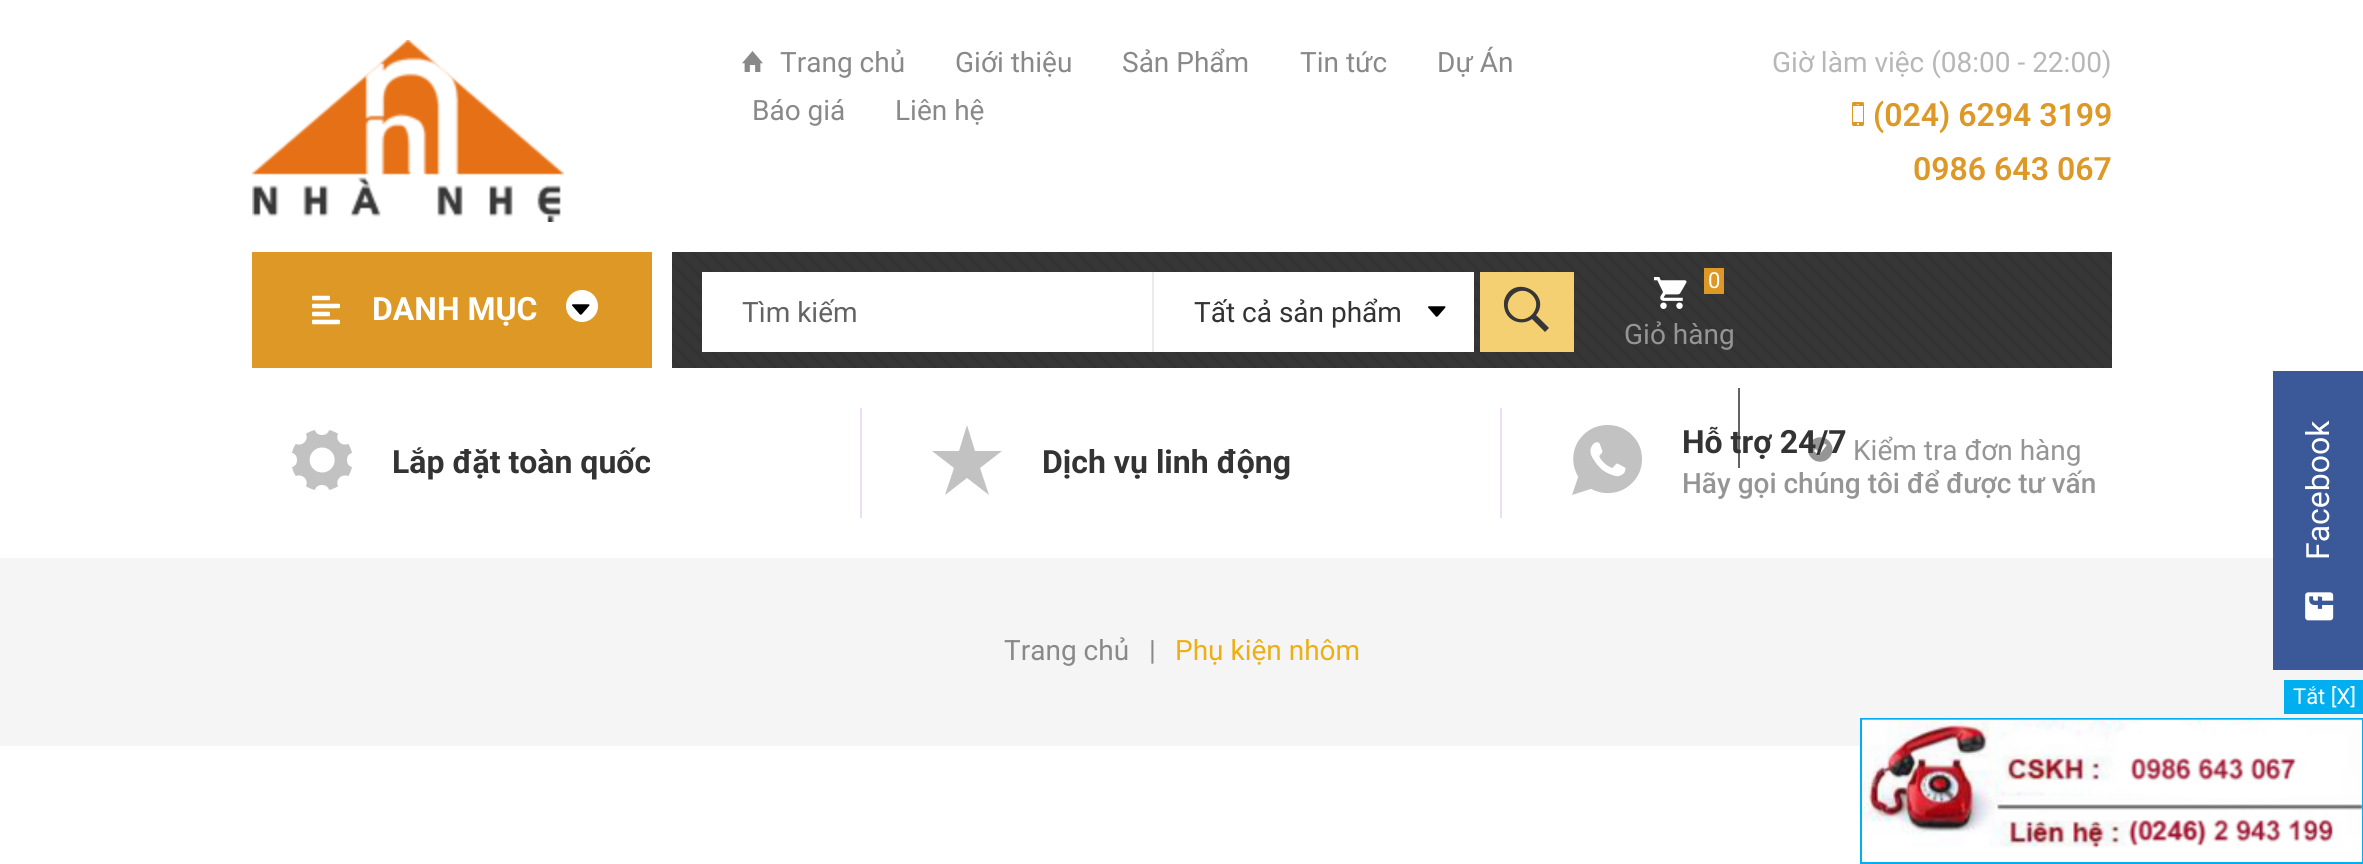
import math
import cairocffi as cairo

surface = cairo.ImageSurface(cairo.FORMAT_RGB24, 2363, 864)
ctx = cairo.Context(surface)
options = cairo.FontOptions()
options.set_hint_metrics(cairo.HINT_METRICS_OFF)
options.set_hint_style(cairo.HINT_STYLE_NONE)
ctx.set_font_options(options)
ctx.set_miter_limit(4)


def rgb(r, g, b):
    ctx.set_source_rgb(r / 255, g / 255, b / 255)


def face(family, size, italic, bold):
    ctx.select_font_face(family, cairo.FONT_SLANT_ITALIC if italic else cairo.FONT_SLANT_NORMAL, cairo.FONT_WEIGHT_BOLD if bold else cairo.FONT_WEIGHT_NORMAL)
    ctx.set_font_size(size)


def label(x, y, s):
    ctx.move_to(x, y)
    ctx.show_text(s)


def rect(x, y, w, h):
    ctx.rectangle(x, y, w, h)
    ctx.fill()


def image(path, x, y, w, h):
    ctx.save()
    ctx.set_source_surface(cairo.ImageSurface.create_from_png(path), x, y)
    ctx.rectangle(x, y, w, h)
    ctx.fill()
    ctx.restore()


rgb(255, 255, 255)
ctx.paint()
image('image0.png', 252, 40, 312, 182)
image('image1.png', 742, 51, 21, 21)
face('Roboto', 28, 0, 0)
rgb(137, 137, 137)
label(780, 72, 'Trang chủ')
label(955, 72, 'Giới thiệu')
label(1122, 72, 'Sản Phẩm')
label(1300, 72, 'Tin tức')
label(1437, 72, 'Dự Án')
label(752, 120, 'Báo giá')
label(895, 120, 'Liên hệ')
rgb(183, 183, 183)
label(1772, 72, 'Giờ làm việc (08:00 - 22:00)')
image('image2.png', 1852, 102, 12, 24)
face('Roboto SemiBold', 32, 0, 0)
rgb(221, 152, 37)
label(1873, 126, '(024) 6294 3199')
label(1913, 180, '0986 643 067')
rect(252, 252, 400, 116)
image('image3.png', 312, 295, 28, 30)
face('Roboto', 32, 0, 1)
rgb(255, 255, 255)
label(372, 320, 'DANH MỤC')
ctx.new_path()
ctx.arc(582, 306, 16, 0, 2 * math.pi)
ctx.fill()
image('image4.png', 572, 304, 18, 11)
image('image5.png', 672, 252, 1440, 116)
rect(702, 272, 450, 80)
face('Roboto', 28, 0, 0)
rgb(99, 99, 99)
label(742, 322, 'Tìm kiếm')
rgb(255, 255, 255)
rect(1154, 272, 320, 80)
rgb(235, 235, 235)
rect(1152, 272, 2, 80)
rgb(51, 51, 51)
label(1194, 322, 'Tất cả sản phẩm')
image('image4.png', 1428, 306, 18, 11)
rgb(244, 208, 114)
rect(1480, 272, 94, 80)
rgb(54, 54, 54)
ctx.new_path()
ctx.move_to(1537, 314)
ctx.line_to(1536, 315)
ctx.line_to(1549, 328)
ctx.line_to(1545, 332)
ctx.line_to(1532, 319)
ctx.curve_to(1524, 325, 1511, 323, 1506, 313)
ctx.curve_to(1504, 309, 1503, 303, 1505, 298)
ctx.curve_to(1515, 274, 1551, 293, 1537, 314)
ctx.close_path()
ctx.move_to(1532, 295)
ctx.curve_to(1519, 282, 1499, 302, 1512, 315)
ctx.curve_to(1525, 328, 1545, 308, 1532, 295)
ctx.close_path()
ctx.fill()
image('image6.png', 1654, 277, 33, 32)
rgb(221, 152, 37)
rect(1704, 268, 20, 26)
face('Roboto', 22, 0, 0)
rgb(255, 255, 255)
label(1708, 288, '0')
face('Roboto', 28, 0, 0)
rgb(149, 149, 149)
label(1624, 344, 'Giỏ hàng')
rgb(99, 99, 99)
rect(1738, 388, 2, 80)
image('image7.png', 1808, 437, 25, 25)
rgb(149, 149, 149)
label(1853, 460, 'Kiểm tra đơn hàng')
rgb(238, 222, 242)
rect(860, 408, 2, 110)
image('image8.png', 292, 430, 60, 60)
face('Roboto', 32, 0, 1)
rgb(51, 51, 51)
label(392, 473, 'Lắp đặt toàn quốc')
rgb(238, 222, 242)
rect(1500, 408, 2, 110)
rgb(194, 194, 194)
ctx.new_path()
ctx.move_to(1002, 451)
ctx.line_to(980, 468)
ctx.line_to(989, 495)
ctx.line_to(967, 478)
ctx.line_to(945, 495)
ctx.line_to(954, 468)
ctx.line_to(932, 451)
ctx.line_to(959, 451)
ctx.line_to(967, 425)
ctx.line_to(975, 451)
ctx.close_path()
ctx.fill()
rgb(51, 51, 51)
label(1042, 473, 'Dịch vụ linh động')
image('image9.png', 1572, 425, 70, 70)
label(1682, 453, 'Hỗ trợ 24/7')
face('Roboto Medium', 28, 0, 0)
rgb(149, 149, 149)
label(1682, 493, 'Hãy gọi chúng tôi để được tư vấn')
rgb(245, 245, 245)
rect(0, 558, 2363, 188)
rgb(59, 89, 153)
rect(2273, 371, 90, 299)
face('Roboto', 32, 0, 0)
rgb(255, 255, 255)
ctx.save()
ctx.translate(2329, 560)
ctx.rotate(-90 * math.pi / 180)
label(0, 0, 'Facebook')
ctx.restore()
image('image10.png', 2305, 592, 29, 29)
face('Roboto', 28, 0, 0)
rgb(137, 137, 137)
label(1004, 660, 'Trang chủ')
label(1149, 660, '|')
rgb(236, 176, 20)
label(1175, 660, 'Phụ kiện nhôm')
rgb(1, 174, 240)
rect(2284, 680, 79, 34)
face('Roboto', 22, 0, 0)
rgb(255, 255, 255)
label(2293, 704, 'Tắt [X]')
ctx.rectangle(1861, 719, 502, 144)
rgb(1, 174, 240)
ctx.stroke()
image('image11.png', 1862, 719, 500, 129)
surface.write_to_png('render.png')
